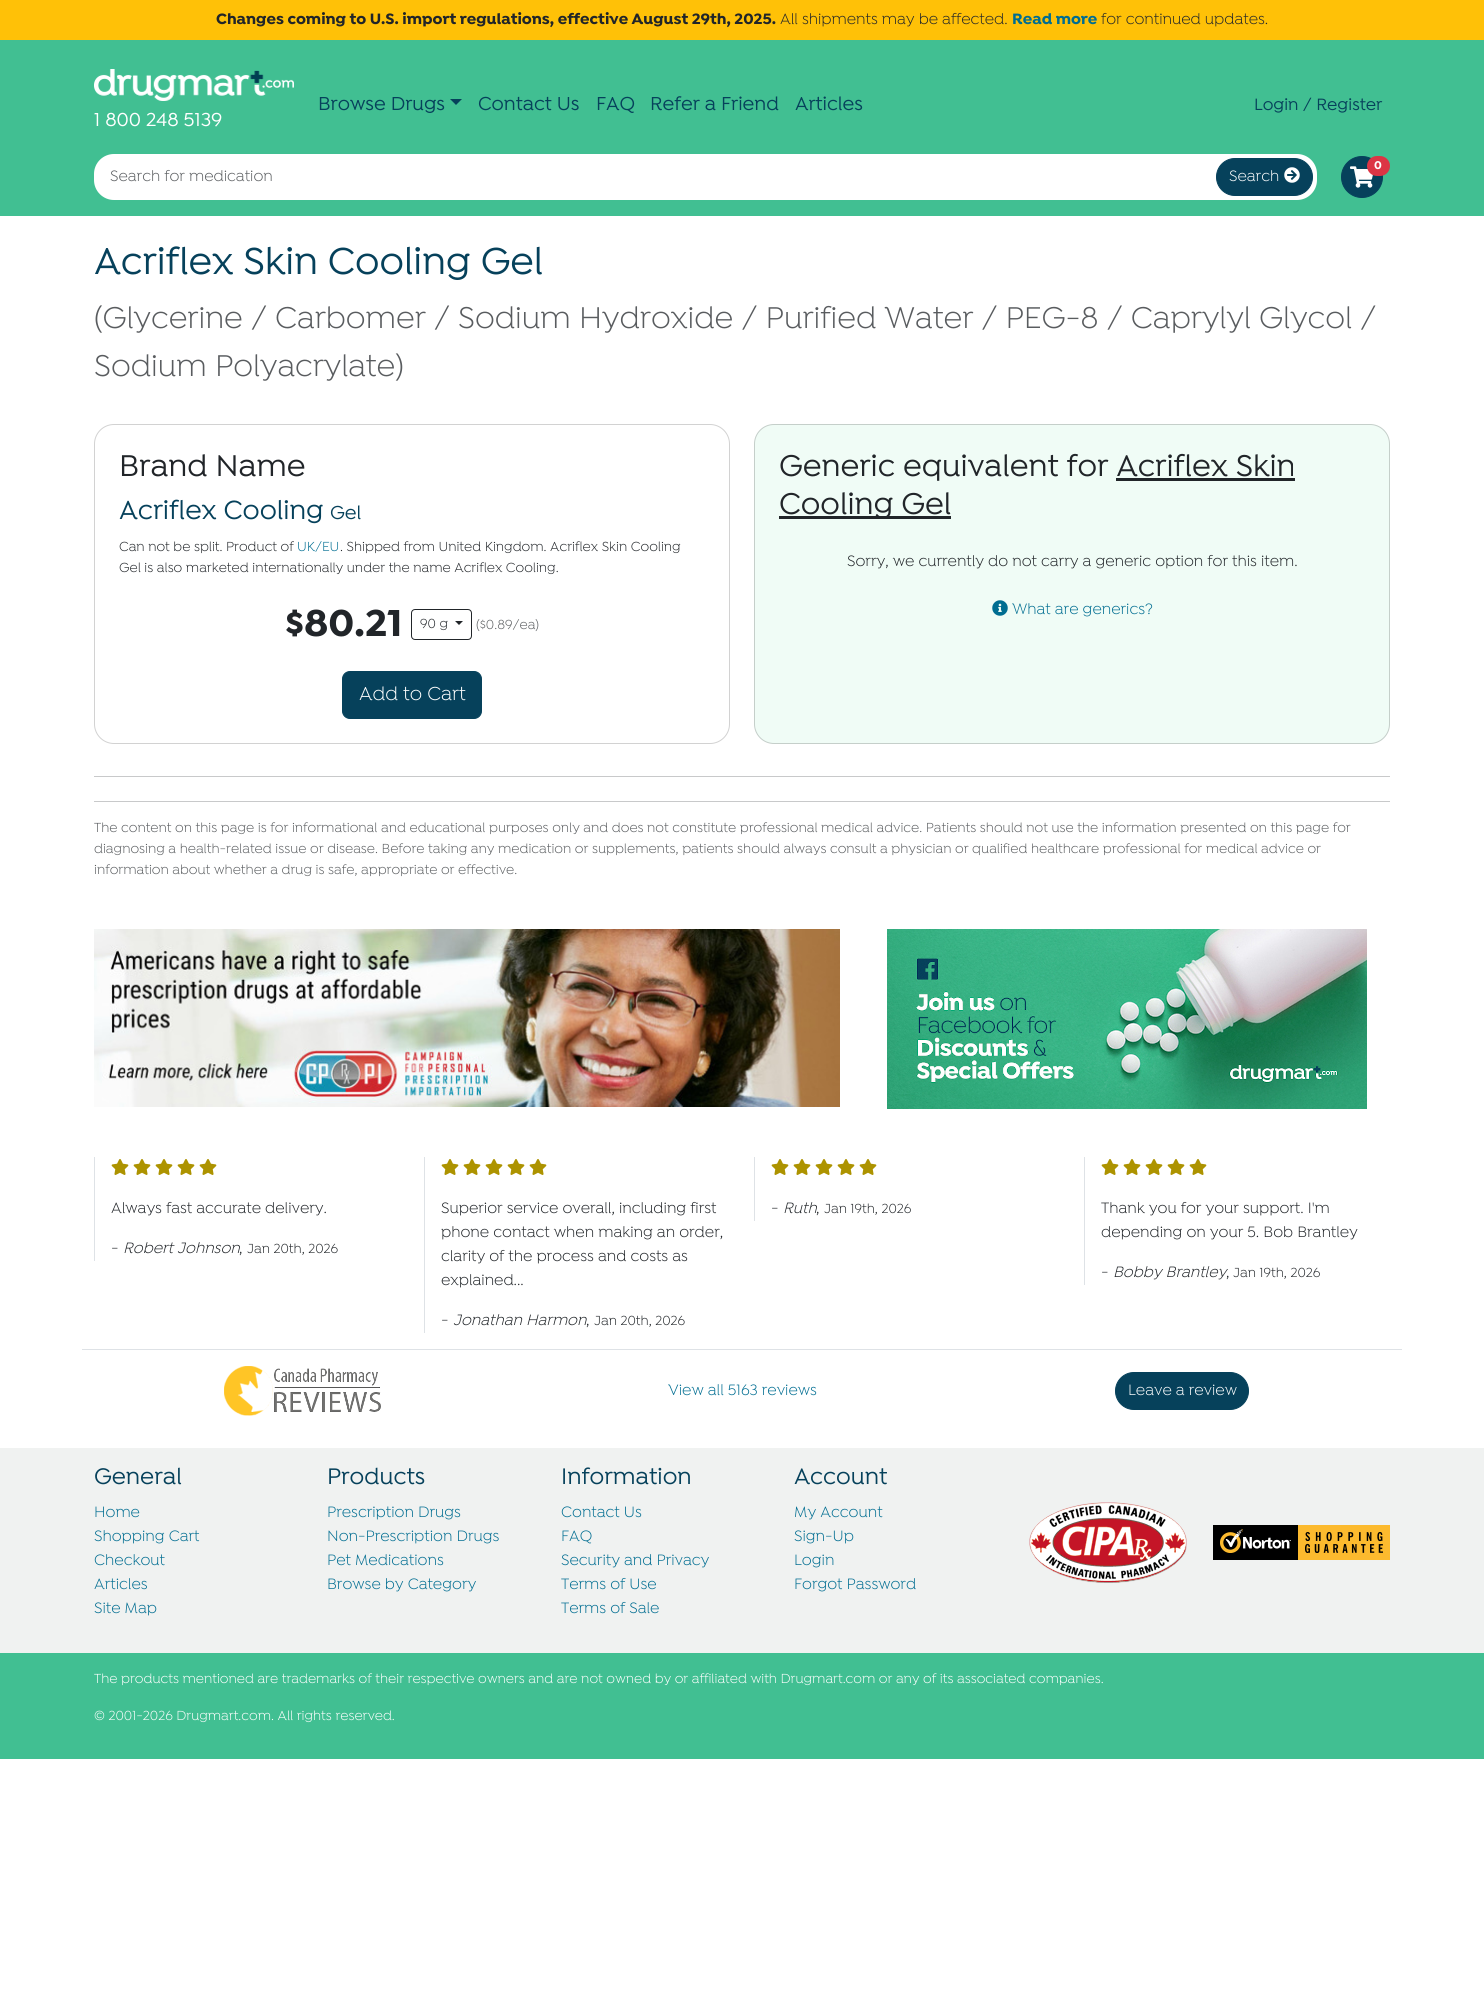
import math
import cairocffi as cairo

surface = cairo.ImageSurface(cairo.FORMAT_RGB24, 1484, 1990)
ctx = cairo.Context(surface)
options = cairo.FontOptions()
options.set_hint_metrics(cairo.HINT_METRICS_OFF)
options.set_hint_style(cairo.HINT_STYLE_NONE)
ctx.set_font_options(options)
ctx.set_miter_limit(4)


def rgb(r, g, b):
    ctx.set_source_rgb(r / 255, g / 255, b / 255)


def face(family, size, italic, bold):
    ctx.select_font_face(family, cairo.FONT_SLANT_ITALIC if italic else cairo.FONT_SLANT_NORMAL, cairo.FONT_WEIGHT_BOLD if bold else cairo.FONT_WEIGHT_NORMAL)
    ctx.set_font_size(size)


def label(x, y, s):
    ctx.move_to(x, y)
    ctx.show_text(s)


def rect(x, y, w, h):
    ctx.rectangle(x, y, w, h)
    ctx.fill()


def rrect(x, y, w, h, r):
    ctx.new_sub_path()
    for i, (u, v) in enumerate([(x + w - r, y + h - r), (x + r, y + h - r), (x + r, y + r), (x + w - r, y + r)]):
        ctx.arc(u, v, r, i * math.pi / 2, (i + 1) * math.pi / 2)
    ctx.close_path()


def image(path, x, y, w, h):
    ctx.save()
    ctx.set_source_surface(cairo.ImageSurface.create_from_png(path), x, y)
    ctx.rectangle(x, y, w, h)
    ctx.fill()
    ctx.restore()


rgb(255, 255, 255)
ctx.paint()
rgb(255, 193, 7)
rect(0, 0, 1484, 40)
face('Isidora', 16, 0, 1)
rgb(33, 37, 41)
label(216, 24, 'Changes coming to U.S. import regulations, effective August 29th, 2025.')
face('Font', 16, 0, 0)
label(780, 24, 'All shipments may be affected.')
face('Isidora', 16, 0, 1)
rgb(0, 109, 145)
label(1012, 24, 'Read more')
face('Font', 16, 0, 0)
rgb(33, 37, 41)
label(1101, 24, 'for continued updates.')
rgb(65, 191, 146)
rect(0, 40, 1484, 176)
face('Isidora Medium', 20, 0, 0)
rgb(6, 65, 91)
label(318, 110, 'Browse Drugs')
ctx.new_path()
ctx.move_to(450, 99)
ctx.line_to(462, 99)
ctx.line_to(456, 105)
ctx.close_path()
ctx.fill()
label(478, 110, 'Contact Us')
label(596, 110, 'FAQ')
label(650, 110, 'Refer a Friend')
label(795, 110, 'Articles')
face('Isidora Medium', 17.5, 0, 0)
label(1254, 110, 'Login / Register')
image('image0.png', 94, 69, 200, 32)
face('Isidora Medium', 20, 0, 0)
rgb(255, 255, 255)
label(94, 126, '1 800 248 5139')
rgb(6, 65, 91)
ctx.new_path()
ctx.arc(1362, 177, 20.5, 0, 2 * math.pi)
ctx.fill_preserve()
ctx.set_line_width(1)
ctx.stroke()
image('image1.png', 1350, 166, 23, 22)
rgb(220, 53, 69)
rrect(1367, 156, 23, 20, 10)
ctx.fill()
face('Isidora', 12, 0, 1)
rgb(255, 255, 255)
label(1374, 169, '0')
rrect(94, 154, 1223, 46, 20)
ctx.fill()
face('Font', 16, 0, 0)
rgb(89, 92, 95)
label(110, 181, 'Search for medication')
rgb(6, 65, 91)
rrect(1216.5, 158.5, 96, 37, 18.5)
ctx.fill_preserve()
ctx.stroke()
rgb(255, 255, 255)
label(1229, 181, 'Search')
image('image2.png', 1284, 167, 16, 16)
face('Isidora Medium', 40, 0, 0)
rgb(6, 65, 91)
label(94, 274, 'Acriflex Skin Cooling Gel')
face('Font', 32, 0, 0)
rgb(89, 92, 95)
label(94, 328, '(Glycerine / Carbomer / Sodium Hydroxide / Purified Water / PEG-8 / Caprylyl Glycol /')
label(94, 376, 'Sodium Polyacrylate)')
rrect(94.5, 424.5, 635, 319, 19.5)
rgb(210, 210, 210)
ctx.stroke()
face('Isidora Medium', 32, 0, 0)
rgb(33, 37, 41)
label(119, 476, 'Brand Name')
face('Isidora Medium', 28, 0, 0)
rgb(6, 65, 91)
label(119, 519, 'Acriflex Cooling')
face('Isidora Medium', 20, 0, 0)
label(330, 519, 'Gel')
face('Font', 14, 0, 0)
rgb(33, 37, 41)
label(119, 551, 'Can not be split. Product of')
rgb(0, 109, 145)
label(297, 551, 'UK/EU')
rgb(33, 37, 41)
label(340, 551, '. Shipped from United Kingdom. Acriflex Skin Cooling')
label(119, 572, 'Gel is also marketed internationally under the name Acriflex Cooling.')
face('Isidora', 40, 0, 1)
label(285, 636, '$80.21')
rrect(411.5, 609.5, 60, 30, 3.5)
ctx.stroke()
face('Font', 14, 0, 0)
label(420, 628, '90 g')
ctx.new_path()
ctx.move_to(455, 621)
ctx.line_to(463, 621)
ctx.line_to(459, 625)
ctx.close_path()
ctx.fill()
rgb(89, 92, 95)
label(476, 629, '($0.89/ea)')
rgb(6, 65, 91)
rrect(342.5, 671.5, 139, 47, 7.5)
ctx.fill_preserve()
ctx.stroke()
face('Font', 20, 0, 0)
rgb(255, 255, 255)
label(359, 700, 'Add to Cart')
rgb(240, 252, 246)
rrect(754, 424, 636, 320, 20)
ctx.fill()
rrect(754.5, 424.5, 635, 319, 19.5)
ctx.set_source_rgba(0, 0, 0, 0.18)
ctx.stroke()
face('Isidora Medium', 32, 0, 0)
rgb(33, 37, 41)
label(779, 476, 'Generic equivalent for Acriflex Skin')
rect(779, 516, 172, 3)
label(779, 514, 'Cooling Gel')
rect(1116, 478, 179, 3)
face('Font', 16, 0, 0)
label(847, 566, 'Sorry, we currently do not carry a generic option for this item.')
image('image3.png', 992, 600, 16, 16)
rgb(0, 109, 145)
label(1012, 614, 'What are generics?')
rgb(200, 201, 202)
rect(94, 776, 1296, 1)
rect(94, 801, 1296, 1)
face('Font', 14, 0, 0)
rgb(89, 92, 95)
label(94, 832, 'The content on this page is for informational and educational purposes only and does not constitute professional medical advice. Patients should not use the information presented on this page for')
label(94, 853, 'diagnosing a health-related issue or disease. Before taking any medication or supplements, patients should always consult a physician or qualified healthcare professional for medical advice or')
label(94, 874, 'information about whether a drug is safe, appropriate or effective.')
image('image4.png', 94, 929, 746, 178)
image('image5.png', 887, 929, 480, 180)
rgb(222, 226, 230)
rect(82, 1349, 1320, 1)
rect(94, 1157, 1, 104)
image('image6.png', 111, 1159, 18, 16)
image('image6.png', 133, 1159, 18, 16)
image('image6.png', 155, 1159, 18, 16)
image('image6.png', 177, 1159, 18, 16)
image('image6.png', 199, 1159, 18, 16)
face('Font', 16, 0, 0)
rgb(33, 37, 41)
label(111, 1213, 'Always fast accurate delivery.')
label(111, 1253, '-')
face('Font', 16, 1, 0)
label(123, 1253, 'Robert Johnson')
face('Font', 14, 0, 0)
label(247, 1253, 'Jan 20th, 2026')
face('Font', 16, 0, 0)
label(239, 1253, ',')
rgb(222, 226, 230)
rect(424, 1157, 1, 176)
image('image6.png', 441, 1159, 18, 16)
image('image6.png', 463, 1159, 18, 16)
image('image6.png', 485, 1159, 18, 16)
image('image6.png', 507, 1159, 18, 16)
image('image6.png', 529, 1159, 18, 16)
rgb(33, 37, 41)
label(441, 1213, 'Superior service overall, including first')
label(441, 1237, 'phone contact when making an order,')
label(441, 1261, 'clarity of the process and costs as')
label(441, 1285, 'explained...')
label(441, 1325, '-')
face('Font', 16, 1, 0)
label(453, 1325, 'Jonathan Harmon')
face('Font', 14, 0, 0)
label(594, 1325, 'Jan 20th, 2026')
face('Font', 16, 0, 0)
label(586, 1325, ',')
rgb(222, 226, 230)
rect(754, 1157, 1, 64)
image('image6.png', 771, 1159, 18, 16)
image('image6.png', 793, 1159, 18, 16)
image('image6.png', 815, 1159, 18, 16)
image('image6.png', 837, 1159, 18, 16)
image('image6.png', 859, 1159, 18, 16)
rgb(33, 37, 41)
label(771, 1213, '-')
face('Font', 16, 1, 0)
label(783, 1213, 'Ruth')
face('Font', 14, 0, 0)
label(824, 1213, 'Jan 19th, 2026')
face('Font', 16, 0, 0)
label(816, 1213, ',')
rgb(222, 226, 230)
rect(1084, 1157, 1, 128)
image('image6.png', 1101, 1159, 18, 16)
image('image6.png', 1123, 1159, 18, 16)
image('image6.png', 1145, 1159, 18, 16)
image('image6.png', 1167, 1159, 18, 16)
image('image6.png', 1189, 1159, 18, 16)
rgb(33, 37, 41)
label(1101, 1213, 'Thank you for your support. I\'m')
label(1101, 1237, 'depending on your 5. Bob Brantley')
label(1101, 1277, '-')
face('Font', 16, 1, 0)
label(1113, 1277, 'Bobby Brantley')
face('Font', 14, 0, 0)
label(1233, 1277, 'Jan 19th, 2026')
face('Font', 16, 0, 0)
label(1226, 1277, ',')
image('image7.png', 224, 1366, 157, 50)
rgb(0, 109, 145)
label(668, 1395, 'View all 5163 reviews')
rgb(6, 65, 91)
rrect(1115.5, 1372.5, 133, 37, 18.5)
ctx.fill_preserve()
ctx.stroke()
rgb(255, 255, 255)
label(1128, 1395, 'Leave a review')
rgb(240, 242, 241)
rect(0, 1448, 1484, 205)
face('Isidora Medium', 24, 0, 0)
rgb(6, 65, 91)
label(94, 1484, 'General')
face('Font', 16, 0, 0)
rgb(0, 109, 145)
label(94, 1517, 'Home')
label(94, 1541, 'Shopping Cart')
label(94, 1565, 'Checkout')
label(94, 1589, 'Articles')
label(94, 1613, 'Site Map')
face('Isidora Medium', 24, 0, 0)
rgb(6, 65, 91)
label(327, 1484, 'Products')
face('Font', 16, 0, 0)
rgb(0, 109, 145)
label(327, 1517, 'Prescription Drugs')
label(327, 1541, 'Non-Prescription Drugs')
label(327, 1565, 'Pet Medications')
label(327, 1589, 'Browse by Category')
face('Isidora Medium', 24, 0, 0)
rgb(6, 65, 91)
label(561, 1484, 'Information')
face('Font', 16, 0, 0)
rgb(0, 109, 145)
label(561, 1517, 'Contact Us')
label(561, 1541, 'FAQ')
label(561, 1565, 'Security and Privacy')
label(561, 1589, 'Terms of Use')
label(561, 1613, 'Terms of Sale')
face('Isidora Medium', 24, 0, 0)
rgb(6, 65, 91)
label(794, 1484, 'Account')
face('Font', 16, 0, 0)
rgb(0, 109, 145)
label(794, 1517, 'My Account')
label(794, 1541, 'Sign-Up')
label(794, 1565, 'Login')
label(794, 1589, 'Forgot Password')
image('image8.png', 1029, 1502, 158, 81)
image('image9.png', 1213, 1525, 177, 35)
rgb(65, 191, 146)
rect(0, 1653, 1484, 106)
face('Font', 14, 0, 0)
rgb(255, 255, 255)
label(94, 1683, 'The products mentioned are trademarks of their respective owners and are not owned by or affiliated with Drugmart.com or any of its associated companies.')
label(94, 1720, '© 2001-2026 Drugmart.com. All rights reserved.')
surface.write_to_png('render.png')
